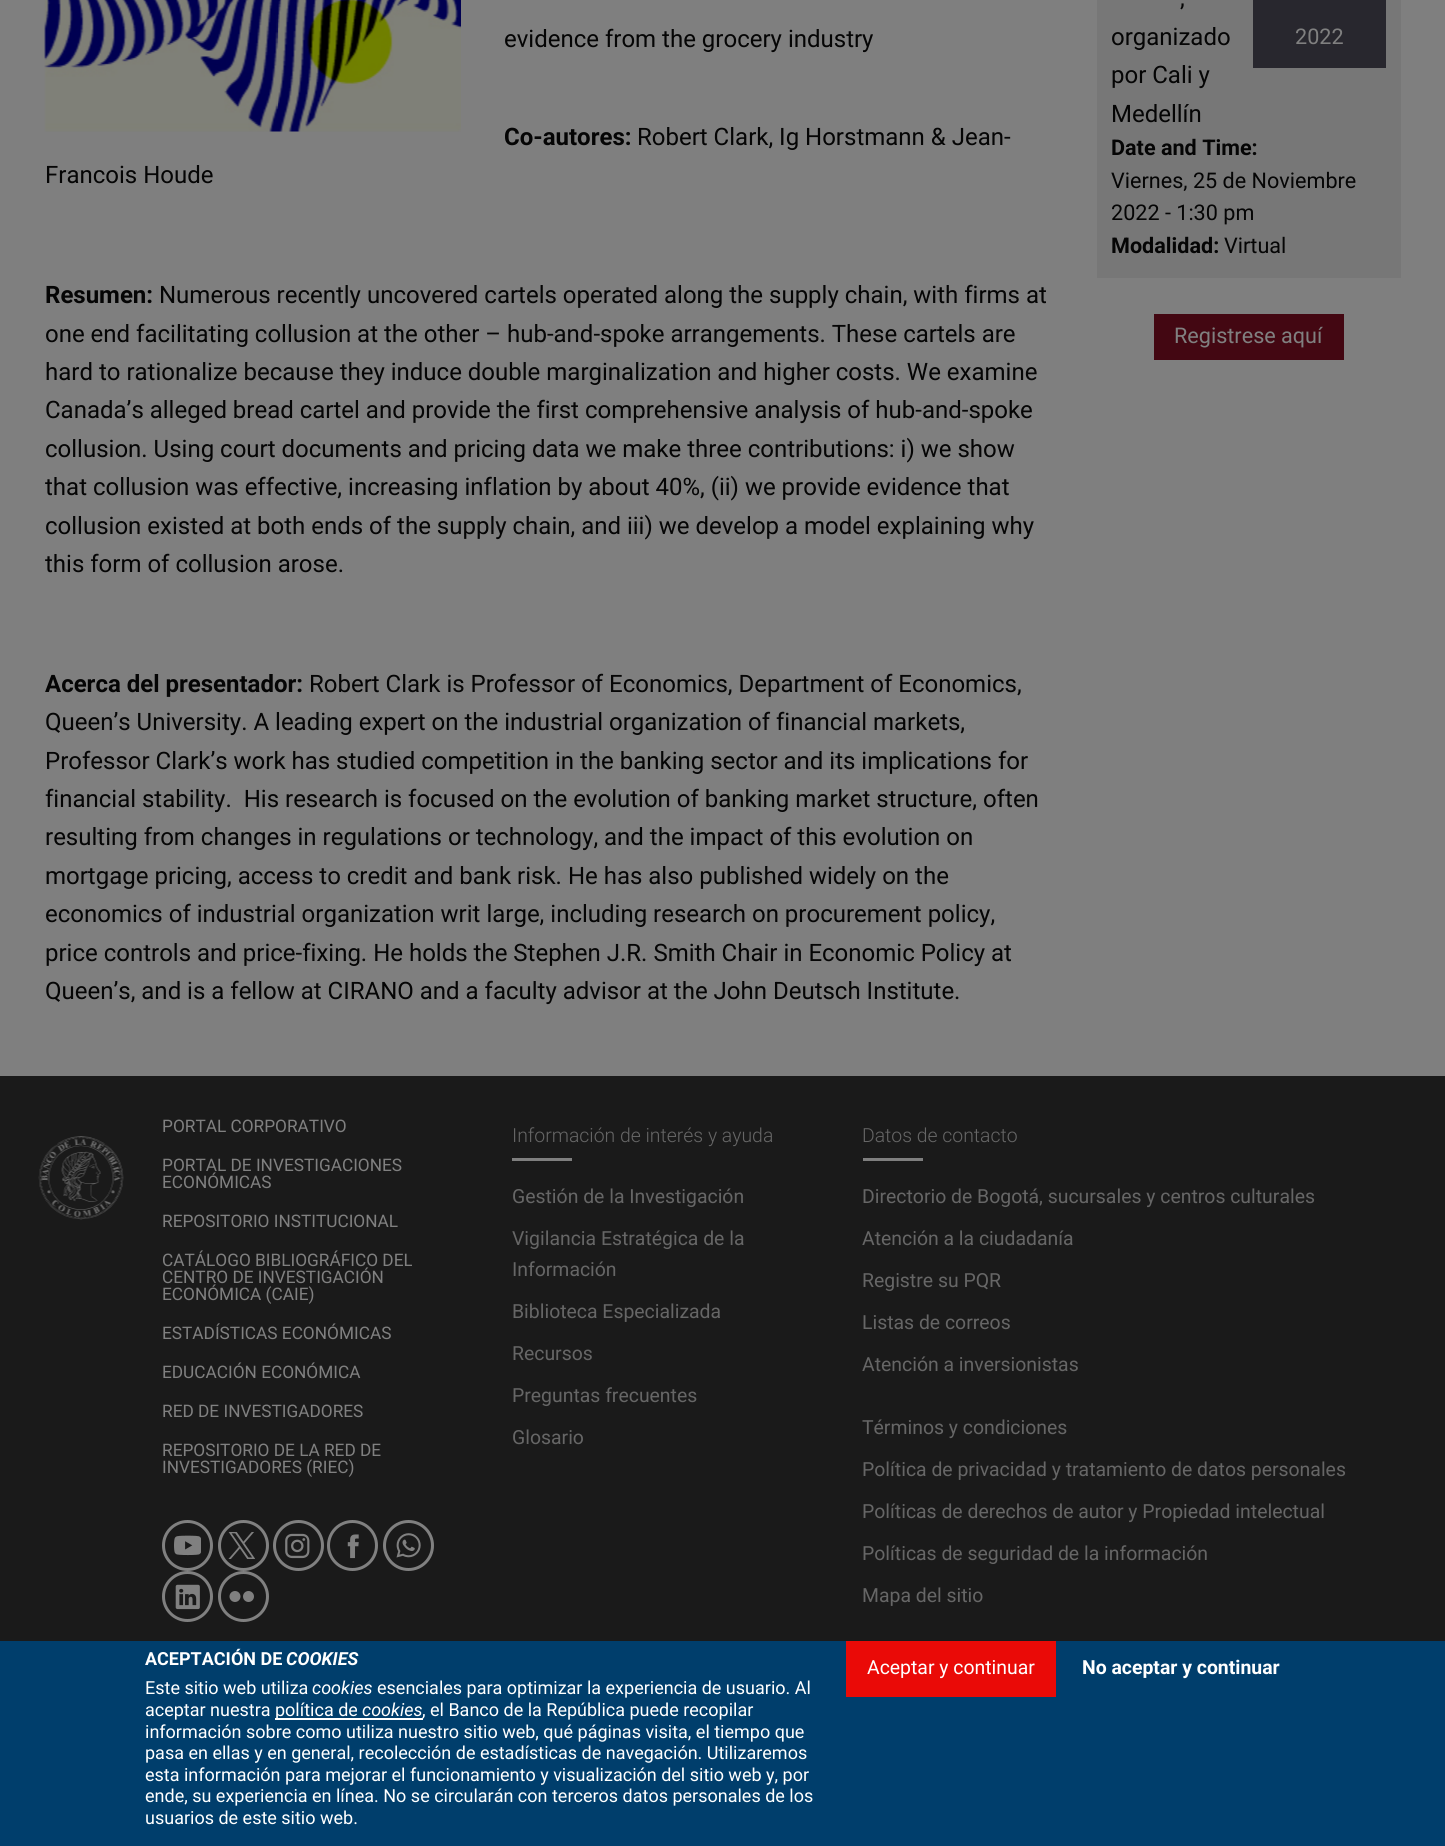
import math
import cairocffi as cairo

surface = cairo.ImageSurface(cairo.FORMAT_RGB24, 1445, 1846)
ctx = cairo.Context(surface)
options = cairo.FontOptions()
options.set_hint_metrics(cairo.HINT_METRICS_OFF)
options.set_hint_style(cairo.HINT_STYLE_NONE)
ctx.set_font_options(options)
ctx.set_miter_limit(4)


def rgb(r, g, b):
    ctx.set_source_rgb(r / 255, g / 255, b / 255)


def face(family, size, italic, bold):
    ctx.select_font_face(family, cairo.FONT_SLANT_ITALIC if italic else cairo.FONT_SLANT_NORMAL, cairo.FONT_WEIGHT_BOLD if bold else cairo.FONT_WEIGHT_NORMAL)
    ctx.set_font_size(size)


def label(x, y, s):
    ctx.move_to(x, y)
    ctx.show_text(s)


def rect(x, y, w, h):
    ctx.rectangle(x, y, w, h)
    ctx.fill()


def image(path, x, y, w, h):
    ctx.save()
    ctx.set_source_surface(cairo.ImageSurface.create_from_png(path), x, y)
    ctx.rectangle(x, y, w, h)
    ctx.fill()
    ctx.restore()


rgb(127, 127, 127)
ctx.paint()
image('image0.png', 44, 0, 417, 132)
face('Roboto', 24, 0, 0)
rgb(5, 5, 5)
label(504, 47, 'evidence from the grocery industry')
face('Roboto', 24, 0, 1)
label(504, 145, 'Co-autores:')
face('Roboto', 24, 0, 0)
label(637, 145, 'Robert Clark, Ig Horstmann & Jean-')
label(45, 183, 'Francois Houde')
face('Roboto', 24, 0, 1)
label(45, 303, 'Resumen:')
face('Roboto', 24, 0, 0)
label(159, 303, 'Numerous recently uncovered cartels operated along the supply chain, with firms at')
label(45, 342, 'one end facilitating collusion at the other – hub-and-spoke arrangements. These cartels are')
label(45, 380, 'hard to rationalize because they induce double marginalization and higher costs. We examine')
label(45, 418, 'Canada’s alleged bread cartel and provide the first comprehensive analysis of hub-and-spoke')
label(45, 457, 'collusion. Using court documents and pricing data we make three contributions: i) we show')
label(45, 495, 'that collusion was effective, increasing inflation by about 40%, (ii) we provide evidence that')
label(45, 534, 'collusion existed at both ends of the supply chain, and iii) we develop a model explaining why')
label(45, 572, 'this form of collusion arose.')
face('Roboto', 24, 0, 1)
label(45, 692, 'Acerca del presentador:')
face('Roboto', 24, 0, 0)
label(309, 692, 'Robert Clark is Professor of Economics, Department of Economics,')
label(45, 730, 'Queen’s University. A leading expert on the industrial organization of financial markets,')
label(45, 769, 'Professor Clark’s work has studied competition in the banking sector and its implications for')
label(45, 807, 'financial stability.  His research is focused on the evolution of banking market structure, often')
label(45, 845, 'resulting from changes in regulations or technology, and the impact of this evolution on')
label(45, 884, 'mortgage pricing, access to credit and bank risk. He has also published widely on the')
label(45, 922, 'economics of industrial organization writ large, including research on procurement policy,')
label(45, 961, 'price controls and price-fixing. He holds the Stephen J.R. Smith Chair in Economic Policy at')
label(45, 999, 'Queen’s, and is a fellow at CIRANO and a faculty advisor at the John Deutsch Institute.')
rgb(119, 119, 119)
rect(1097, 0, 304, 278)
rgb(5, 5, 5)
label(1180, 6, ',')
label(1111, 45, 'organizado')
label(1111, 83, 'por Cali y')
label(1111, 122, 'Medellín')
rgb(40, 39, 46)
rect(1253, 0, 133, 68)
face('Roboto', 21.6, 0, 0)
rgb(128, 128, 128)
label(1295, 44, '2022')
face('Roboto', 21.6, 0, 1)
rgb(5, 5, 5)
label(1111, 155, 'Date and Time:')
face('Roboto', 21.6, 0, 0)
label(1111, 188, 'Viernes, 25 de Noviembre')
label(1111, 220, '2022 - 1:30 pm')
face('Roboto', 21.6, 0, 1)
label(1111, 253, 'Modalidad:')
face('Roboto', 21.6, 0, 0)
label(1224, 253, 'Virtual')
rgb(67, 7, 18)
rect(1154, 314, 190, 46)
rgb(128, 128, 128)
label(1174, 343, 'Registrese aquí')
rgb(26, 26, 26)
rect(0, 1076, 1445, 565)
image('image1.png', 38, 1136, 86, 84)
face('Roboto', 17.25, 0, 0)
rgb(128, 128, 128)
label(162, 1132, 'PORTAL CORPORATIVO')
label(162, 1171, 'PORTAL DE INVESTIGACIONES')
label(162, 1188, 'ECONÓMICAS')
label(162, 1227, 'REPOSITORIO INSTITUCIONAL')
label(162, 1266, 'CATÁLOGO BIBLIOGRÁFICO DEL')
label(162, 1283, 'CENTRO DE INVESTIGACIÓN')
label(162, 1300, 'ECONÓMICA (CAIE)')
label(162, 1339, 'ESTADÍSTICAS ECONÓMICAS')
label(162, 1378, 'EDUCACIÓN ECONÓMICA')
label(162, 1417, 'RED DE INVESTIGADORES')
label(162, 1456, 'REPOSITORIO DE LA RED DE')
label(162, 1473, 'INVESTIGADORES (RIEC)')
ctx.new_path()
ctx.arc(187.5, 1545.5, 24, 0, 2 * math.pi)
ctx.set_line_width(3)
ctx.stroke()
image('image2.png', 174, 1535, 27, 21)
ctx.arc(243.5, 1545.5, 24, 0, 2 * math.pi)
ctx.stroke()
image('image3.png', 228, 1532, 27, 27)
ctx.arc(298.5, 1545.5, 24, 0, 2 * math.pi)
ctx.stroke()
image('image4.png', 285, 1533, 25, 26)
ctx.arc(352.5, 1545.5, 24, 0, 2 * math.pi)
ctx.stroke()
image('image5.png', 347, 1534, 12, 25)
ctx.arc(408.5, 1545.5, 24, 0, 2 * math.pi)
ctx.stroke()
image('image6.png', 396, 1533, 25, 25)
ctx.arc(187.5, 1596.5, 24, 0, 2 * math.pi)
ctx.stroke()
image('image7.png', 175, 1584, 25, 26)
ctx.arc(243.5, 1596.5, 24, 0, 2 * math.pi)
ctx.stroke()
ctx.arc(235, 1596.5, 5.5, 0, 2 * math.pi)
ctx.fill()
ctx.arc(248.5, 1596.5, 5.5, 0, 2 * math.pi)
ctx.fill()
face('Roboto Light', 19.4, 0, 0)
rgb(102, 102, 102)
label(512, 1142, 'Información de interés y ayuda')
rgb(127, 127, 127)
rect(512, 1158, 60, 3)
face('Roboto', 19.4, 0, 0)
rgb(102, 102, 102)
label(512, 1203, 'Gestión de la Investigación')
label(512, 1245, 'Vigilancia Estratégica de la')
label(512, 1276, 'Información')
label(512, 1318, 'Biblioteca Especializada')
label(512, 1360, 'Recursos')
label(512, 1402, 'Preguntas frecuentes')
label(512, 1444, 'Glosario')
face('Roboto Light', 19.4, 0, 0)
label(862, 1142, 'Datos de contacto')
rgb(127, 127, 127)
rect(863, 1158, 60, 3)
face('Roboto', 19.4, 0, 0)
rgb(102, 102, 102)
label(862, 1203, 'Directorio de Bogotá, sucursales y centros culturales')
label(862, 1245, 'Atención a la ciudadanía')
label(862, 1287, 'Registre su PQR')
label(862, 1329, 'Listas de correos')
label(862, 1371, 'Atención a inversionistas')
label(862, 1434, 'Términos y condiciones')
label(862, 1476, 'Política de privacidad y tratamiento de datos personales')
label(862, 1518, 'Políticas de derechos de autor y Propiedad intelectual')
label(862, 1560, 'Políticas de seguridad de la información')
label(862, 1602, 'Mapa del sitio')
rgb(0, 62, 108)
rect(0, 1641, 1445, 205)
face('Roboto', 18, 0, 1)
rgb(255, 255, 255)
label(145, 1665, 'ACEPTACIÓN DE')
face('Roboto', 18, 1, 1)
label(286, 1665, 'COOKIES')
face('Roboto', 18, 0, 0)
label(145, 1694, 'Este sitio web utiliza')
face('Roboto', 18, 1, 0)
label(312, 1694, 'cookies')
face('Roboto', 18, 0, 0)
label(377, 1694, 'esenciales para optimizar la experiencia de usuario. Al')
label(145, 1716, 'aceptar nuestra')
rect(275, 1718, 148, 2)
label(275, 1716, 'política de')
face('Roboto', 18, 1, 0)
label(362, 1716, 'cookies')
face('Roboto', 18, 0, 0)
label(422, 1716, ', el Banco de la República puede recopilar')
label(145, 1738, 'información sobre como utiliza nuestro sitio web, qué páginas visita, el tiempo que')
label(145, 1759, 'pasa en ellas y en general, recolección de estadísticas de navegación. Utilizaremos')
label(145, 1781, 'esta información para mejorar el funcionamiento y visualización del sitio web y, por')
label(145, 1802, 'ende, su experiencia en línea. No se circularán con terceros datos personales de los')
label(145, 1824, 'usuarios de este sitio web.')
rgb(234, 10, 7)
rect(846, 1641, 210, 56)
face('Roboto', 19.4, 0, 0)
rgb(255, 255, 255)
label(867, 1674, 'Aceptar y continuar')
face('Roboto', 19.4, 0, 1)
label(1082, 1674, 'No aceptar y continuar')
surface.write_to_png('render.png')
